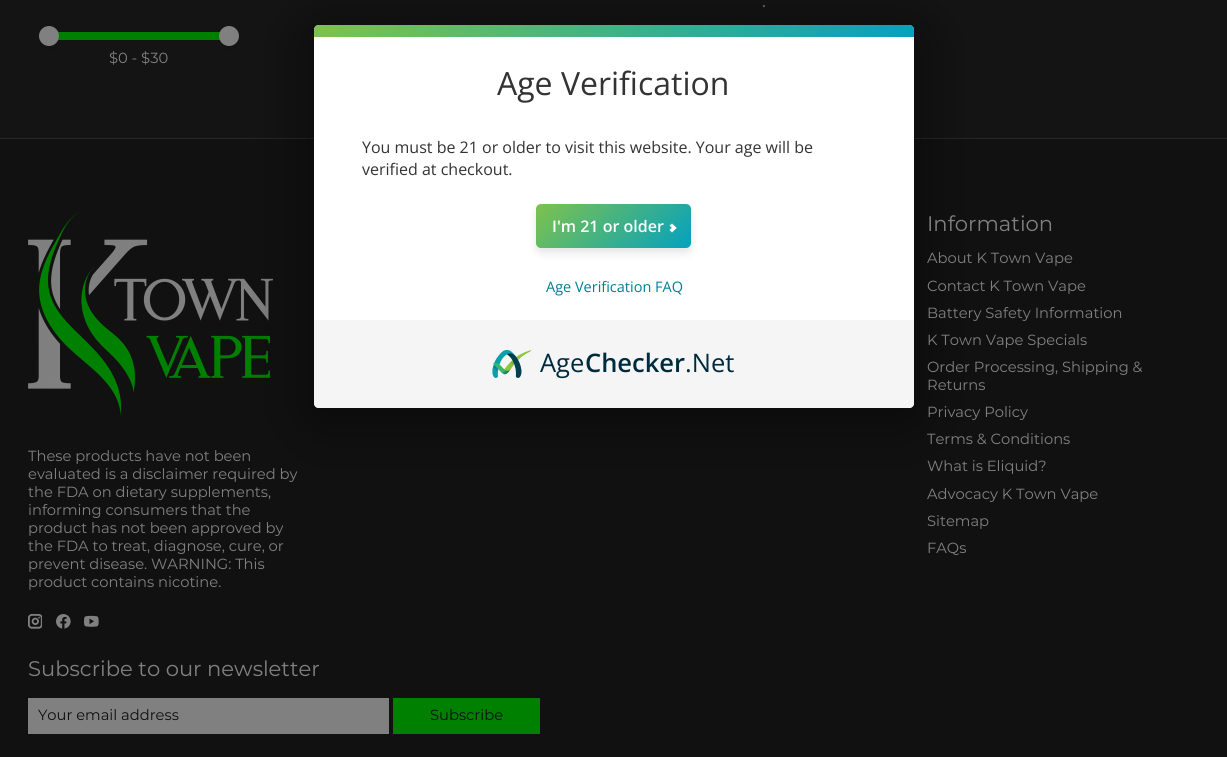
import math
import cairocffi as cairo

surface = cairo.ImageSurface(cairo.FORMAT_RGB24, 1227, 757)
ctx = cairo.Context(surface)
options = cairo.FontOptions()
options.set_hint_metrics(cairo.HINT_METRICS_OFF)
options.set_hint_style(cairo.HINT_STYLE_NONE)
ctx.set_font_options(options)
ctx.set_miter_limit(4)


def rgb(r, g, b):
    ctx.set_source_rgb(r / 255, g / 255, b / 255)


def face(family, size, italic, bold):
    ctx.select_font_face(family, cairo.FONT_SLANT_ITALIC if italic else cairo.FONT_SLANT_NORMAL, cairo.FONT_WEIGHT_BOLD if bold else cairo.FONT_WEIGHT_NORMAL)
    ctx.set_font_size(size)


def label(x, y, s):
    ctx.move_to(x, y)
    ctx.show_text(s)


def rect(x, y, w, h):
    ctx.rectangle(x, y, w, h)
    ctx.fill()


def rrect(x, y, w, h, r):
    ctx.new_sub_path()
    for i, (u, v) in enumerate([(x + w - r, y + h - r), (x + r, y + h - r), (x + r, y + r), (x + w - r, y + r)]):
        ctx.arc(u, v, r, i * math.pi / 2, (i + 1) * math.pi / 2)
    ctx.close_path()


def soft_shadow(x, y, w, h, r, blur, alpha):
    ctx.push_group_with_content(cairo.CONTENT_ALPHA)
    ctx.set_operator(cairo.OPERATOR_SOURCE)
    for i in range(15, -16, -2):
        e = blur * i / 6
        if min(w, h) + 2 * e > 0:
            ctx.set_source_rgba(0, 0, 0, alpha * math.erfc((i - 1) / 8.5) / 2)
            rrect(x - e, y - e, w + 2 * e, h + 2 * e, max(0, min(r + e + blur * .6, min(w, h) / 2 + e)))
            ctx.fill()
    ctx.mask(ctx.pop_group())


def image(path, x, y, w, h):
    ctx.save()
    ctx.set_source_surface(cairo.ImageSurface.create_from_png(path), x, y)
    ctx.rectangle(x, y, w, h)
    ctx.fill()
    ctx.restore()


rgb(20, 20, 20)
ctx.paint()
face('Montserrat', 18, 0, 0)
rgb(128, 128, 128)
label(762, 7, '.')
rgb(0, 128, 0)
ctx.new_path()
ctx.move_to(43, 32)
ctx.line_to(229, 32)
ctx.line_to(229, 40)
ctx.line_to(43, 40)
ctx.curve_to(41, 40, 39, 38, 39, 36)
ctx.curve_to(39, 34, 41, 32, 43, 32)
ctx.close_path()
ctx.fill()
rgb(0, 0, 0)
soft_shadow(39, 29, 20, 20, 10, 3, 0.08)
rgb(128, 128, 128)
ctx.arc(49, 36, 10, 0, 2 * math.pi)
ctx.fill()
face('Montserrat', 14.7, 0, 0)
label(109, 63, '$0 - $30')
rgb(0, 0, 0)
soft_shadow(219, 29, 20, 20, 10, 3, 0.08)
rgb(128, 128, 128)
ctx.arc(229, 36, 10, 0, 2 * math.pi)
ctx.fill()
rgb(17, 17, 17)
rect(0, 139, 1227, 618)
rgb(39, 39, 39)
rect(0, 138, 1227, 1)
image('image1.png', 28, 211, 245, 205)
rgb(0, 0, 0)
soft_shadow(311, 32, 606, 389, 8, 32, 0.5)
rgb(255, 255, 255)
rrect(314, 25, 600, 383, 5)
ctx.fill()
gradient = cairo.LinearGradient(461, -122, 767, 184)
gradient.add_color_stop_rgba(0, 0.498, 0.761, 0.298, 1)
gradient.add_color_stop_rgba(1, 0.016, 0.631, 0.749, 1)
ctx.set_source(gradient)
ctx.new_path()
ctx.move_to(319, 25)
ctx.line_to(909, 25)
ctx.curve_to(912, 25, 914, 27, 914, 30)
ctx.line_to(914, 37)
ctx.line_to(314, 37)
ctx.line_to(314, 30)
ctx.curve_to(314, 27, 316, 25, 319, 25)
ctx.close_path()
ctx.fill()
face('Open Sans', 32, 0, 0)
rgb(51, 51, 51)
label(497, 95, 'Age Verification')
face('Open Sans', 16, 0, 0)
label(362, 153, 'You must be 21 or older to visit this website. Your age will be')
label(362, 175, 'verified at checkout.')
rgb(0, 0, 0)
soft_shadow(536, 209, 155, 44, 5, 4, 0.1)
gradient = cairo.LinearGradient(564, 176, 663, 276)
gradient.add_color_stop_rgba(0, 0.498, 0.761, 0.298, 1)
gradient.add_color_stop_rgba(1, 0.016, 0.631, 0.749, 1)
ctx.set_source(gradient)
rrect(536, 204, 155, 44, 5)
ctx.fill()
face('Open Sans SemiBold', 16, 0, 0)
rgb(255, 255, 255)
label(552, 232, 'I\'m 21 or older')
ctx.new_path()
ctx.move_to(669.5, 225.5)
ctx.line_to(672, 223.5)
ctx.line_to(676.5, 228)
ctx.line_to(674, 230)
ctx.close_path()
ctx.fill()
ctx.new_path()
ctx.move_to(669.5, 230)
ctx.line_to(674, 225.5)
ctx.line_to(676.5, 228)
ctx.line_to(672, 232.5)
ctx.close_path()
ctx.fill()
face('Open Sans', 14.5, 0, 0)
rgb(3, 125, 150)
label(546, 292, 'Age Verification FAQ')
rgb(245, 245, 245)
ctx.new_path()
ctx.move_to(314, 320)
ctx.line_to(914, 320)
ctx.line_to(914, 403)
ctx.curve_to(914, 406, 912, 408, 909, 408)
ctx.line_to(319, 408)
ctx.curve_to(316, 408, 314, 406, 314, 403)
ctx.close_path()
ctx.fill()
image('image0.png', 492, 350, 40, 28)
face('Open Sans', 25.5, 0, 0)
rgb(0, 43, 62)
label(540, 372, 'Age')
face('Open Sans SemiBold', 25.5, 0, 0)
label(585, 372, 'Checker')
face('Open Sans', 25.5, 0, 0)
label(685, 372, '.Net')
face('Montserrat', 14.7, 0, 0)
rgb(128, 128, 128)
label(28, 461, 'These products have not been')
label(28, 479, 'evaluated is a disclaimer required by')
label(28, 497, 'the FDA on dietary supplements,')
label(28, 515, 'informing consumers that the')
label(28, 533, 'product has not been approved by')
label(28, 551, 'the FDA to treat, diagnose, cure, or')
label(28, 569, 'prevent disease. WARNING: This')
label(28, 587, 'product contains nicotine.')
image('image2.png', 28, 614, 14, 15)
image('image3.png', 56, 614, 15, 15)
image('image4.png', 84, 615, 15, 12)
face('Montserrat', 21.1, 0, 0)
label(927, 231, 'Information')
face('Montserrat', 14.7, 0, 0)
label(927, 263, 'About K Town Vape')
label(927, 291, 'Contact K Town Vape')
label(927, 318, 'Battery Safety Information')
label(927, 345, 'K Town Vape Specials')
label(927, 372, 'Order Processing, Shipping &')
label(927, 390, 'Returns')
label(927, 417, 'Privacy Policy')
label(927, 444, 'Terms & Conditions')
label(927, 471, 'What is Eliquid?')
label(927, 499, 'Advocacy K Town Vape')
label(927, 526, 'Sitemap')
label(927, 553, 'FAQs')
face('Montserrat', 21.1, 0, 0)
label(28, 676, 'Subscribe to our newsletter')
rect(28, 698, 361, 36)
face('Montserrat', 14.7, 0, 0)
rgb(14, 14, 17)
label(38, 720, 'Your email address')
rgb(0, 128, 0)
rect(393, 698, 147, 36)
rgb(14, 14, 17)
label(430, 720, 'Subscribe')
surface.write_to_png('render.png')
